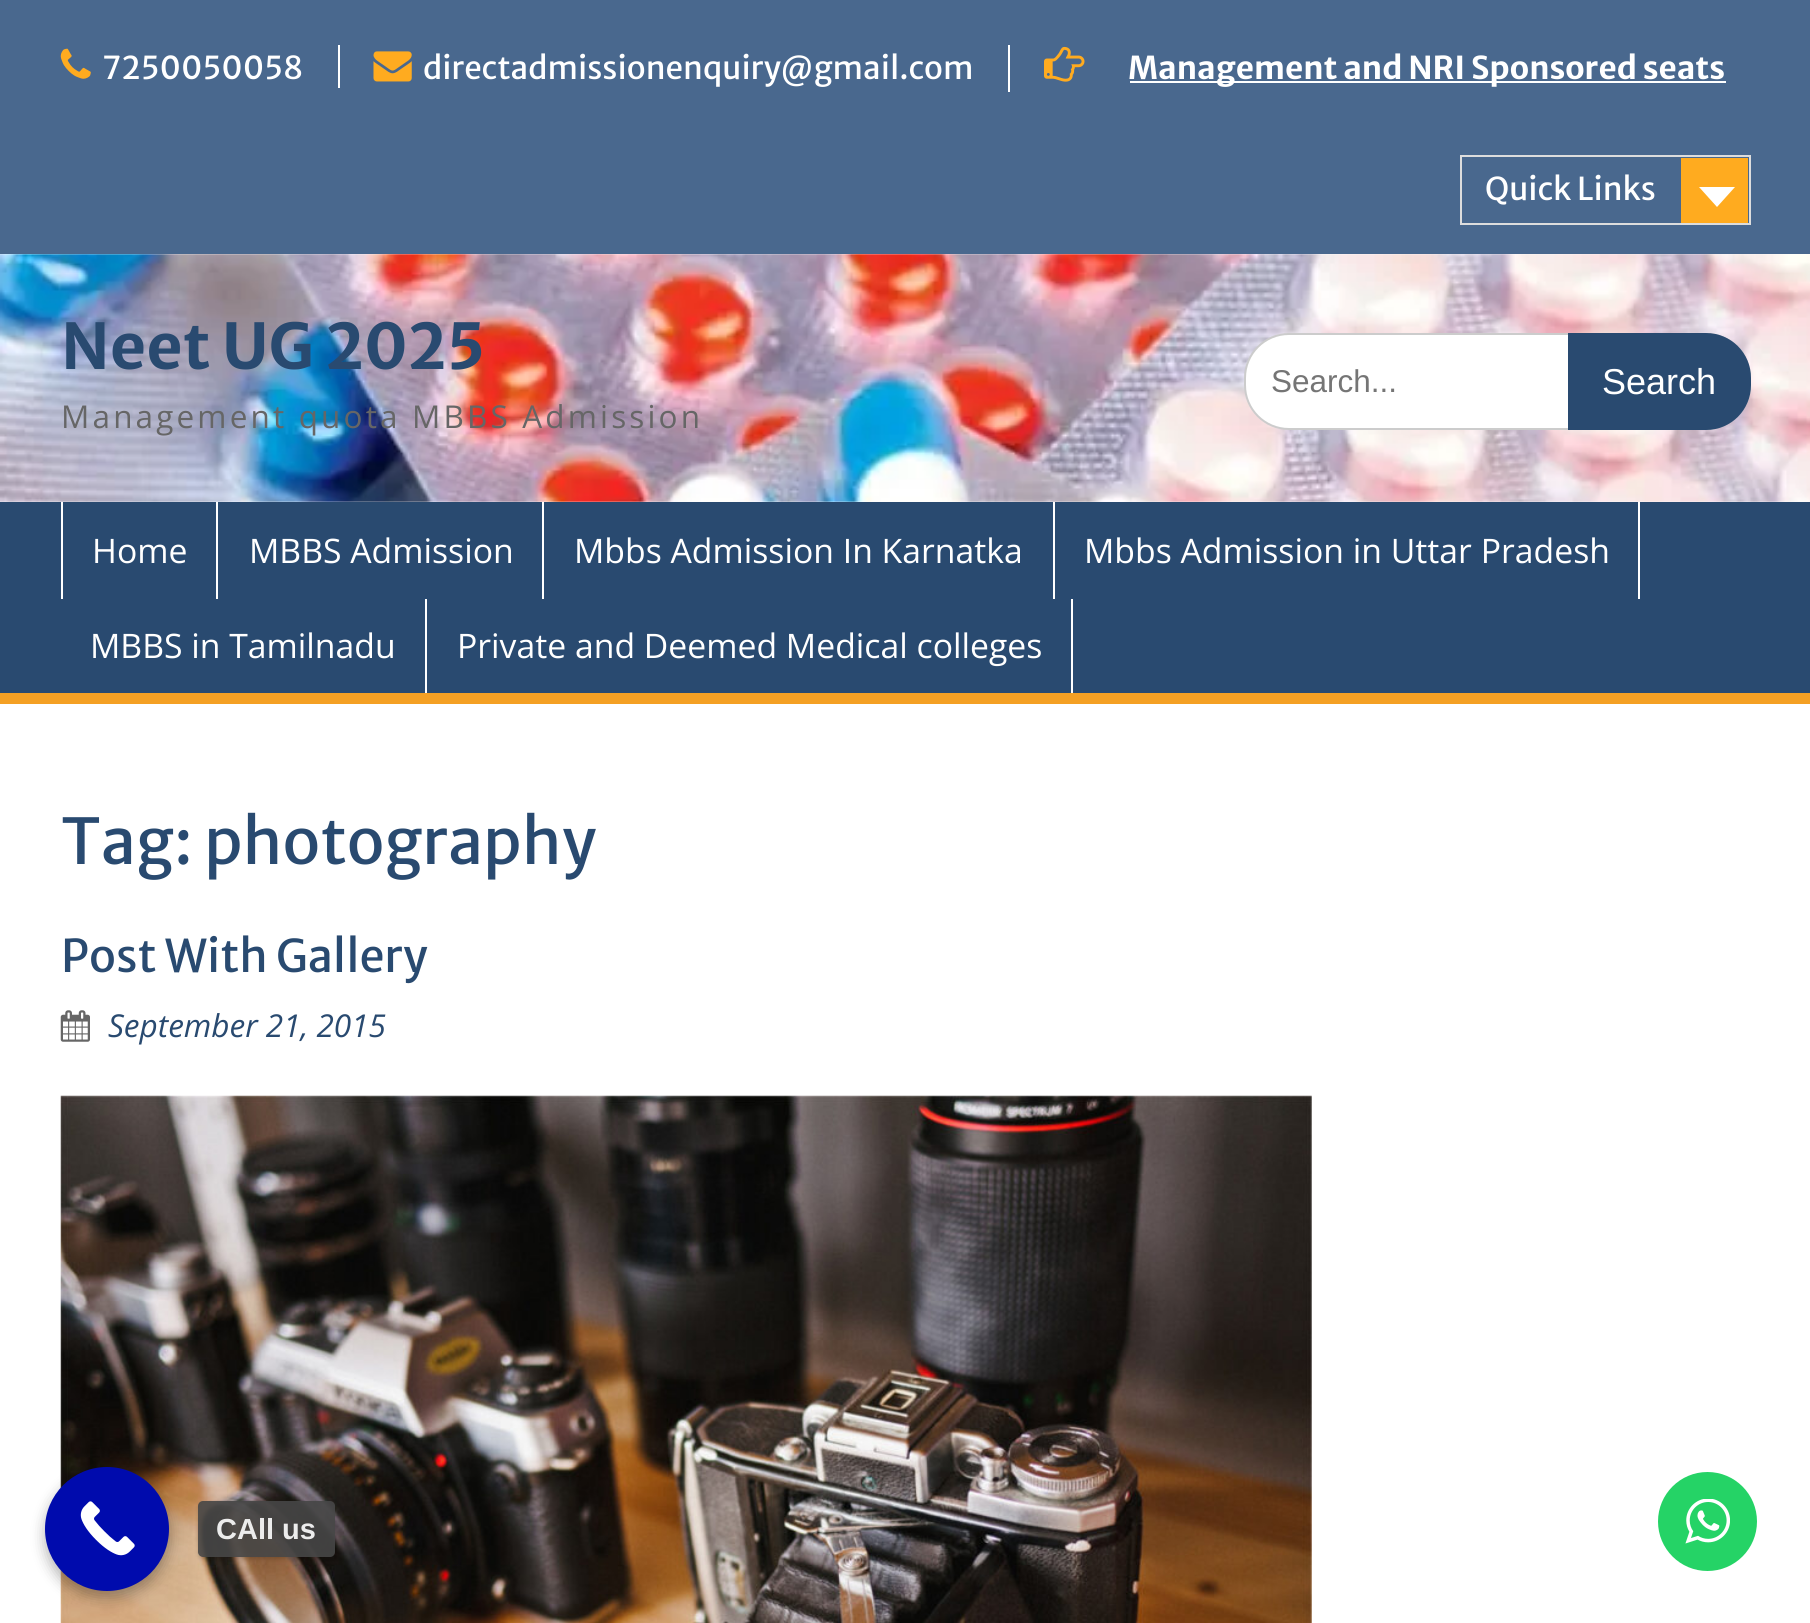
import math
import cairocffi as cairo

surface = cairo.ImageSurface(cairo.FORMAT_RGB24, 1810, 1623)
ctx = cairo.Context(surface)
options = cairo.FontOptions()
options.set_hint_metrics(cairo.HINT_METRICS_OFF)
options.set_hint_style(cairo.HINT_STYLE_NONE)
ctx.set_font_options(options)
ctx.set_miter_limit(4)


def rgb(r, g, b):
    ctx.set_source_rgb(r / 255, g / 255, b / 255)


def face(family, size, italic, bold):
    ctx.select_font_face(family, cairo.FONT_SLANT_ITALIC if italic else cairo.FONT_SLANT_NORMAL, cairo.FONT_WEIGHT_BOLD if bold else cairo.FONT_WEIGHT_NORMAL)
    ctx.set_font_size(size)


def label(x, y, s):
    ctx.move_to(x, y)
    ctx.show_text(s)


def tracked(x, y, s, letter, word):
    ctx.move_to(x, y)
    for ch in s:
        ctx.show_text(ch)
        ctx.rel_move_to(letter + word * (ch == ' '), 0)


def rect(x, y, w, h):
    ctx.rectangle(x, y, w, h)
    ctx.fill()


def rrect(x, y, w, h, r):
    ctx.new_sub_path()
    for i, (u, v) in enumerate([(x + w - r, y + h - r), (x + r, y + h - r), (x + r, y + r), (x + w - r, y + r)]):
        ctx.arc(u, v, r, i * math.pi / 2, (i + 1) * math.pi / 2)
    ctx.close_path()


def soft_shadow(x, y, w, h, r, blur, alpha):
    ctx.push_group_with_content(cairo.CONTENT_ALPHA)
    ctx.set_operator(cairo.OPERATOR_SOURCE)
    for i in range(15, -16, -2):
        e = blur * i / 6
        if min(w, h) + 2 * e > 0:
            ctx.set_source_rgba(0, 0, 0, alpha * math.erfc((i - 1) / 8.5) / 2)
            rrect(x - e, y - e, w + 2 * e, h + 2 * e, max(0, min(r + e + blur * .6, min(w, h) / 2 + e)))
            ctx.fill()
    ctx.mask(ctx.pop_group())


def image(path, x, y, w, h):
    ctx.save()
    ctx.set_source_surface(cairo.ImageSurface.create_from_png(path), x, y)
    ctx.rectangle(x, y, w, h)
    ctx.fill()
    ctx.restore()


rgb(255, 255, 255)
ctx.paint()
rgb(73, 104, 142)
rect(0, 0, 1810, 254)
image('image0.png', 60, 48, 31, 31)
face('Merriweather Sans', 31.5, 0, 0)
rgb(255, 255, 255)
label(102, 79, '7250050058')
rect(338, 45, 2, 43)
image('image1.png', 373, 51, 39, 31)
label(423, 79, 'directadmissionenquiry@gmail.com')
rect(1008, 45, 2, 47)
image('image2.png', 1044, 46, 41, 36)
rect(1130, 81, 596, 2)
face('Merriweather Sans', 31.5, 0, 1)
label(1128, 79, 'Management and NRI Sponsored seats')
ctx.rectangle(1461, 156, 289, 68)
rgb(221, 221, 221)
ctx.stroke()
face('Merriweather Sans', 31.5, 0, 0)
rgb(255, 255, 255)
label(1485, 200, 'Quick Links')
rgb(255, 171, 31)
rect(1681, 158, 67, 65)
rgb(255, 255, 255)
ctx.new_path()
ctx.move_to(1699, 187)
ctx.line_to(1735, 187)
ctx.line_to(1717, 207)
ctx.close_path()
ctx.fill()
image('image3.png', 0, 254, 1810, 248)
face('Merriweather Sans', 63, 0, 1)
rgb(41, 74, 112)
label(61, 369, 'Neet UG 2025')
face('Open Sans', 31.5, 0, 0)
rgb(102, 102, 102)
tracked(61, 428, 'Management quota MBBS Admission', 3.15, 0)
rgb(255, 255, 255)
rrect(1245, 334, 505, 95, 44)
ctx.fill_preserve()
rgb(204, 204, 204)
ctx.stroke()
face('Liberation Sans', 31.5, 0, 0)
rgb(117, 117, 117)
label(1271, 392, 'Search...')
rgb(41, 74, 112)
ctx.new_path()
ctx.move_to(1568, 333)
ctx.line_to(1706, 333)
ctx.curve_to(1731, 333, 1751, 353, 1751, 378)
ctx.line_to(1751, 385)
ctx.curve_to(1751, 410, 1731, 430, 1706, 430)
ctx.line_to(1568, 430)
ctx.close_path()
ctx.fill()
face('Liberation Sans', 36, 0, 0)
rgb(255, 255, 255)
label(1602, 394, 'Search')
rgb(41, 74, 112)
rect(0, 502, 1810, 191)
rgb(244, 160, 36)
rect(0, 693, 1810, 11)
rgb(255, 255, 255)
rect(216, 502, 2, 97)
rect(61, 502, 2, 97)
face('Open Sans', 33.75, 0, 0)
label(92, 563, 'Home')
rect(542, 502, 2, 97)
label(249, 563, 'MBBS Admission')
rect(1053, 502, 2, 97)
label(574, 563, 'Mbbs Admission In Karnatka')
rect(1638, 502, 2, 97)
label(1084, 563, 'Mbbs Admission in Uttar Pradesh')
rect(425, 599, 2, 94)
label(90, 658, 'MBBS in Tamilnadu')
rect(1071, 599, 2, 94)
label(457, 658, 'Private and Deemed Medical colleges')
face('Merriweather Sans', 63, 0, 0)
rgb(41, 74, 112)
label(61, 864, 'Tag: photography')
face('Merriweather Sans', 45, 0, 0)
label(61, 972, 'Post With Gallery')
image('image4.png', 60, 1010, 30, 32)
face('Open Sans', 31.5, 1, 0)
label(108, 1037, 'September 21, 2015')
image('image5.png', 60, 1095, 1252, 528)
rgb(0, 0, 0)
soft_shadow(45, 1474, 124, 124, 62, 7, 0.3)
rgb(0, 11, 173)
ctx.arc(107, 1529, 62, 0, 2 * math.pi)
ctx.fill()
image('image6.png', 80, 1501, 55, 55)
ctx.save()
ctx.set_fill_rule(cairo.FILL_RULE_EVEN_ODD)
ctx.new_path()
ctx.move_to(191, 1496)
ctx.line_to(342, 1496)
ctx.line_to(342, 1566)
ctx.line_to(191, 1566)
ctx.close_path()
ctx.move_to(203, 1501)
ctx.line_to(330, 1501)
ctx.curve_to(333, 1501, 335, 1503, 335, 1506)
ctx.line_to(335, 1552)
ctx.curve_to(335, 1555, 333, 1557, 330, 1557)
ctx.line_to(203, 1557)
ctx.curve_to(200, 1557, 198, 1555, 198, 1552)
ctx.line_to(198, 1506)
ctx.curve_to(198, 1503, 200, 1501, 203, 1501)
ctx.close_path()
ctx.clip()
rgb(0, 0, 0)
soft_shadow(198, 1503, 137, 56, 5, 2, 0.15)
ctx.restore()
ctx.set_source_rgba(0.275, 0.275, 0.275, 0.9)
rrect(198, 1501, 137, 56, 5)
ctx.fill()
face('Liberation Sans', 29, 0, 1)
rgb(236, 236, 236)
label(216, 1539, 'CAll us')
rgb(37, 211, 102)
ctx.new_path()
ctx.arc(1707.5, 1521.5, 49.5, 0, 2 * math.pi)
ctx.fill()
image('image7.png', 1685, 1499, 45, 45)
surface.write_to_png('render.png')
